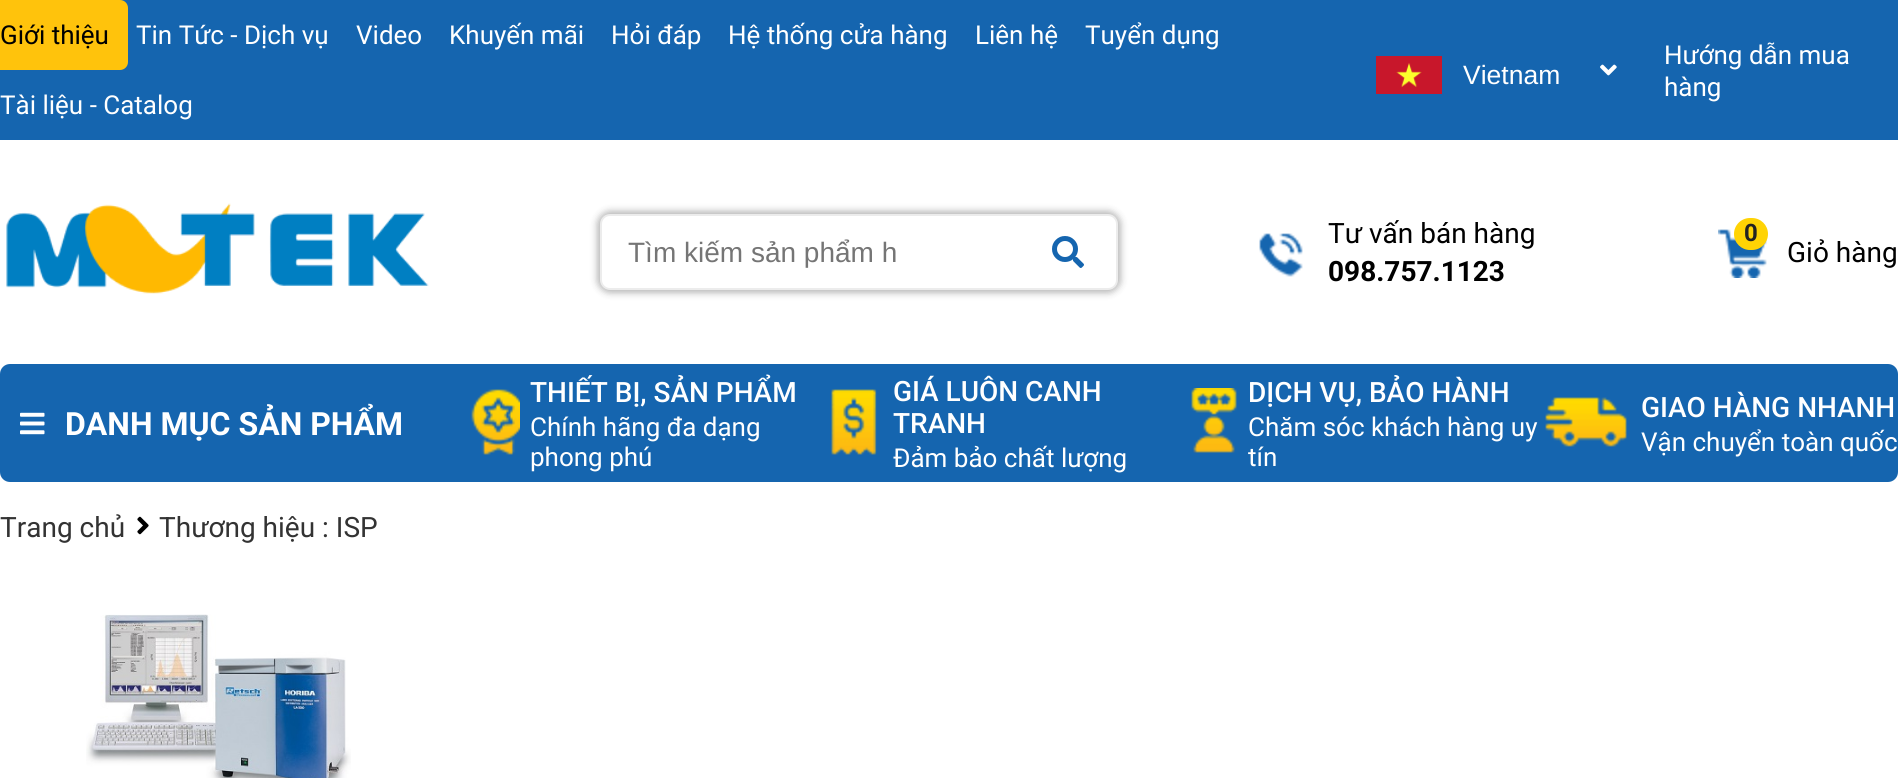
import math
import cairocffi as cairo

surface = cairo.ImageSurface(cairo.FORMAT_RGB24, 1898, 778)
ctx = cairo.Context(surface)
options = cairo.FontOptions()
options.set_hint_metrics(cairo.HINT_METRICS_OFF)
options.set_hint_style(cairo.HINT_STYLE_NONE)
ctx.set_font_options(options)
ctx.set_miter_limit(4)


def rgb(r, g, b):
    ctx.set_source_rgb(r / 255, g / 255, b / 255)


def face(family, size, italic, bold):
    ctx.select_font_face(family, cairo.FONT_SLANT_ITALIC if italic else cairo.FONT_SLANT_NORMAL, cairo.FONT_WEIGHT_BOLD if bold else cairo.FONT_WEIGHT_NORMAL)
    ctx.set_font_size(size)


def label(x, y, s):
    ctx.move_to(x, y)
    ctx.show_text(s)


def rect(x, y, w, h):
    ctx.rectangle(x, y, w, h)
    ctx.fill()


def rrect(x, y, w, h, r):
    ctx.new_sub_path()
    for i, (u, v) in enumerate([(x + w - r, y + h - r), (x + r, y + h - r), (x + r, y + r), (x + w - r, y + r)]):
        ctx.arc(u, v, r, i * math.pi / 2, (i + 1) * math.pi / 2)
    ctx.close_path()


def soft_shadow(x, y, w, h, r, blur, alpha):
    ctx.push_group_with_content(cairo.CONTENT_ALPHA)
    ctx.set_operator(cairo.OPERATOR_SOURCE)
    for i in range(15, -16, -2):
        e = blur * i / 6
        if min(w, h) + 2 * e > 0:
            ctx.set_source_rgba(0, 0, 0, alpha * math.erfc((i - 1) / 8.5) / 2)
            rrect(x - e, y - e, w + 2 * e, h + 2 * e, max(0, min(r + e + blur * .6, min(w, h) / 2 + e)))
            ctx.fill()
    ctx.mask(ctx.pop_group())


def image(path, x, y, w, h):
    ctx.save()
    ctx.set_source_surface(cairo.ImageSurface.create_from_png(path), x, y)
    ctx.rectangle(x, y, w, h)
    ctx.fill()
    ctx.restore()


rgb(255, 255, 255)
ctx.paint()
rgb(21, 101, 175)
rect(0, 0, 1898, 140)
rgb(255, 195, 12)
rrect(-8, 0, 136, 70, 8)
ctx.fill()
face('Roboto', 26, 0, 0)
rgb(0, 0, 0)
label(0, 44, 'Giới thiệu')
rgb(255, 255, 255)
label(136, 44, 'Tin Tức - Dịch vụ')
label(356, 44, 'Video')
label(449, 44, 'Khuyến mãi')
label(611, 44, 'Hỏi đáp')
label(728, 44, 'Hệ thống cửa hàng')
label(975, 44, 'Liên hệ')
label(1085, 44, 'Tuyển dụng')
label(0, 114, 'Tài liệu - Catalog')
image('image0.png', 1376, 56, 66, 38)
face('Liberation Sans', 26.5, 0, 0)
label(1463, 84, 'Vietnam')
image('image1.png', 1600, 64, 17, 12)
face('Roboto', 26, 0, 0)
label(1664, 64, 'Hướng dẫn mua')
label(1664, 96, 'hàng')
image('image2.png', 6, 203, 423, 91)
rgb(0, 0, 0)
soft_shadow(598, 212, 522, 80, 12, 4, 0.34)
rgb(255, 255, 255)
rrect(601, 215, 516, 74, 9)
ctx.fill_preserve()
rgb(236, 236, 236)
ctx.stroke()
face('Liberation Sans', 28, 0, 0)
rgb(117, 117, 117)
label(628, 262, 'Tìm kiếm sản phẩm h')
image('image3.png', 1052, 236, 32, 32)
image('image4.png', 1259, 233, 44, 44)
face('Roboto', 28, 0, 0)
rgb(0, 0, 0)
label(1328, 243, 'Tư vấn bán hàng')
face('Roboto', 28, 0, 1)
label(1328, 281, '098.757.1123')
image('image5.png', 1718, 229, 49, 49)
rgb(255, 211, 4)
rrect(1734, 218, 34, 32, 16)
ctx.fill()
face('Roboto', 24, 0, 1)
rgb(34, 34, 34)
label(1744, 241, '0')
face('Roboto', 28, 0, 0)
rgb(0, 0, 0)
label(1787, 262, 'Giỏ hàng')
rgb(21, 101, 175)
rrect(0, 364, 1898, 118, 10)
ctx.fill()
image('image6.png', 20, 412, 25, 23)
face('Roboto', 32, 0, 1)
rgb(255, 255, 255)
label(65, 435, 'DANH MỤC SẢN PHẨM')
image('image7.png', 471, 389, 49, 66)
face('Roboto Medium', 28, 0, 0)
label(530, 402, 'THIẾT BỊ, SẢN PHẨM')
face('Roboto', 26, 0, 0)
label(530, 436, 'Chính hãng đa dạng')
label(530, 466, 'phong phú')
image('image8.png', 831, 389, 46, 66)
face('Roboto Medium', 28, 0, 0)
label(893, 401, 'GIÁ LUÔN CANH')
label(893, 433, 'TRANH')
face('Roboto', 26, 0, 0)
label(893, 467, 'Đảm bảo chất lượng')
image('image9.png', 1191, 388, 46, 65)
face('Roboto Medium', 28, 0, 0)
label(1248, 402, 'DỊCH VỤ, BẢO HÀNH')
face('Roboto', 26, 0, 0)
label(1248, 436, 'Chăm sóc khách hàng uy')
label(1248, 466, 'tín')
image('image10.png', 1545, 397, 82, 50)
face('Roboto Medium', 28, 0, 0)
label(1641, 417, 'GIAO HÀNG NHANH')
face('Roboto', 26, 0, 0)
label(1641, 451, 'Vận chuyển toàn quốc')
face('Roboto', 28, 0, 0)
rgb(51, 51, 51)
label(0, 537, 'Trang chủ')
image('image11.png', 137, 516, 12, 19)
label(159, 537, 'Thương hiệu : ISP')
image('image12.png', 86, 614, 265, 164)
surface.write_to_png('render.png')
